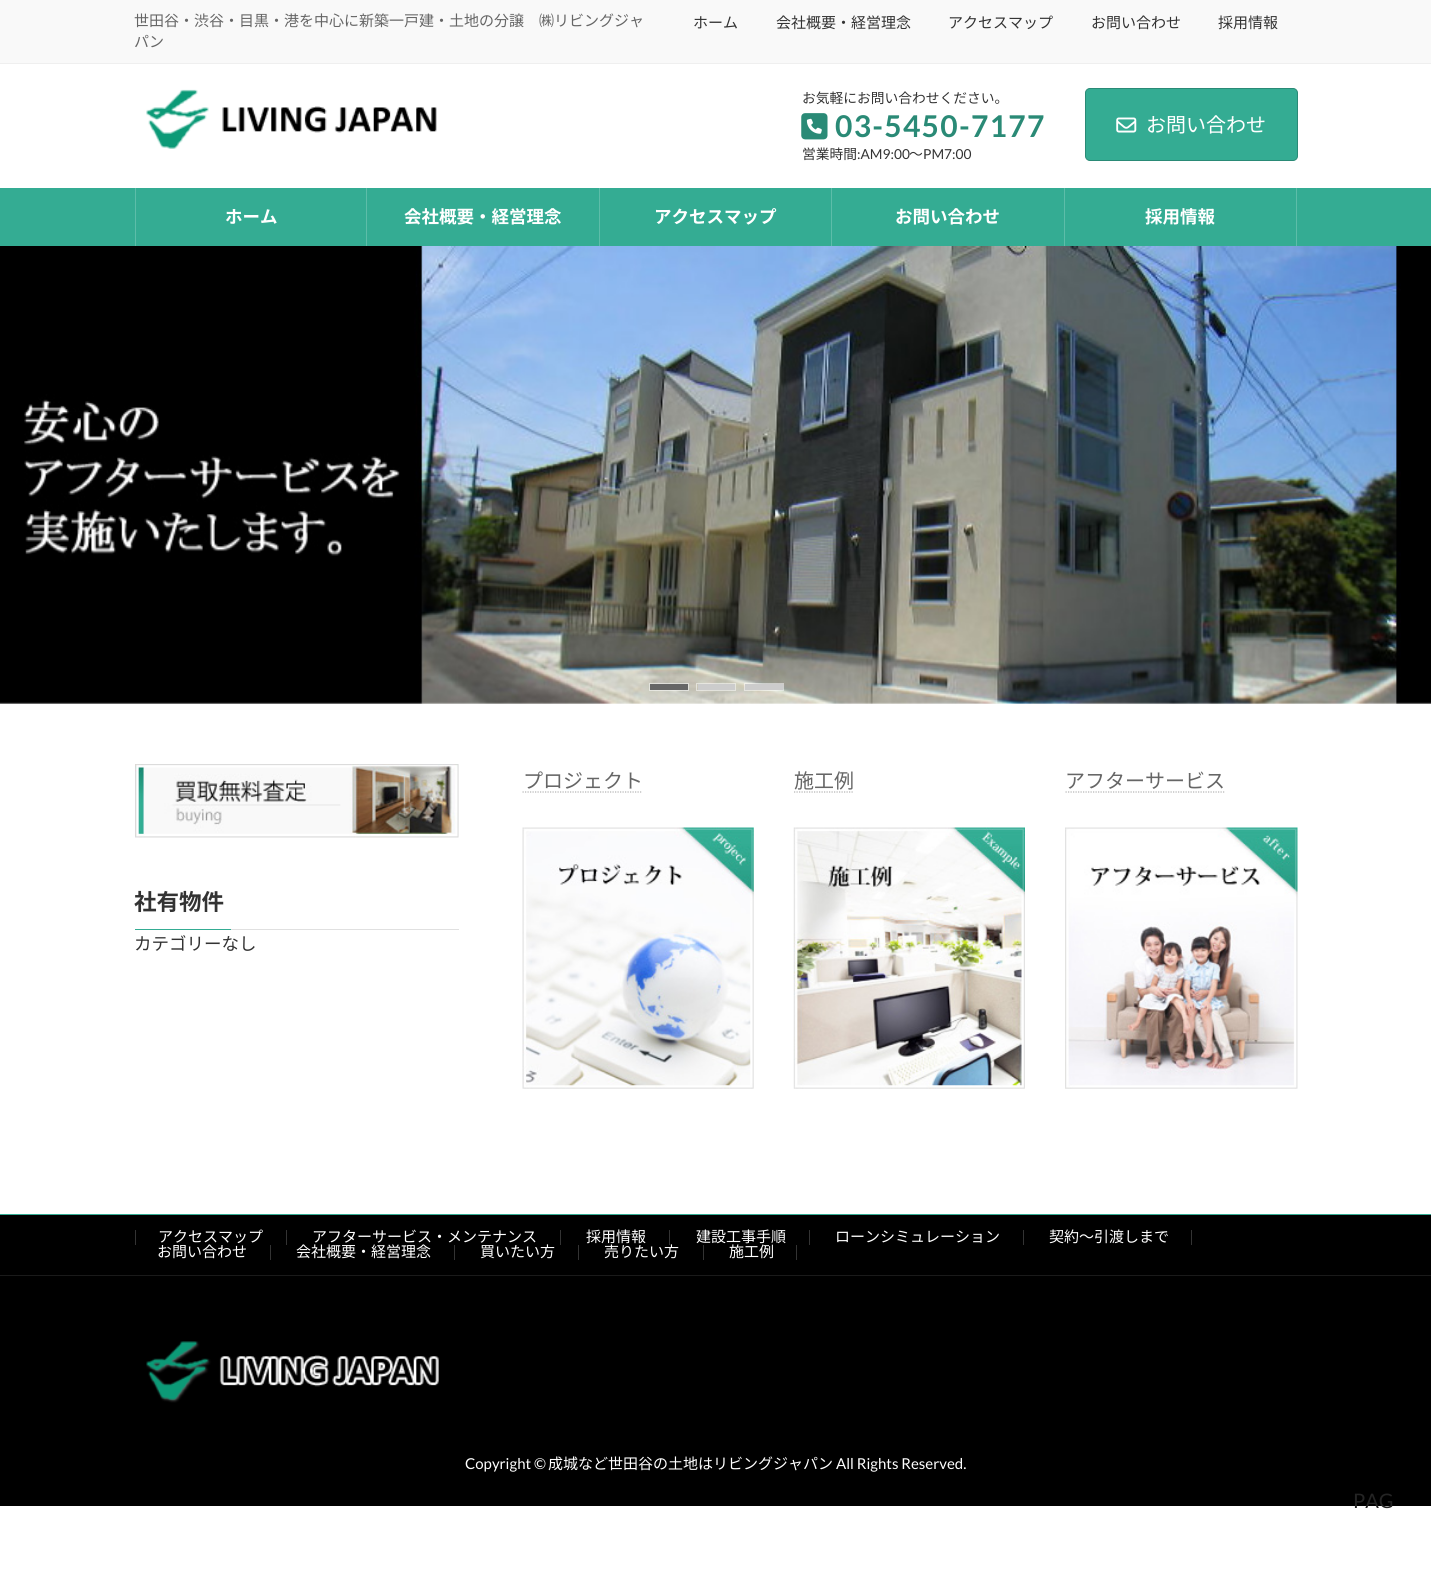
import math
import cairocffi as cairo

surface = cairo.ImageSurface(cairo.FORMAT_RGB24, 1431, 1582)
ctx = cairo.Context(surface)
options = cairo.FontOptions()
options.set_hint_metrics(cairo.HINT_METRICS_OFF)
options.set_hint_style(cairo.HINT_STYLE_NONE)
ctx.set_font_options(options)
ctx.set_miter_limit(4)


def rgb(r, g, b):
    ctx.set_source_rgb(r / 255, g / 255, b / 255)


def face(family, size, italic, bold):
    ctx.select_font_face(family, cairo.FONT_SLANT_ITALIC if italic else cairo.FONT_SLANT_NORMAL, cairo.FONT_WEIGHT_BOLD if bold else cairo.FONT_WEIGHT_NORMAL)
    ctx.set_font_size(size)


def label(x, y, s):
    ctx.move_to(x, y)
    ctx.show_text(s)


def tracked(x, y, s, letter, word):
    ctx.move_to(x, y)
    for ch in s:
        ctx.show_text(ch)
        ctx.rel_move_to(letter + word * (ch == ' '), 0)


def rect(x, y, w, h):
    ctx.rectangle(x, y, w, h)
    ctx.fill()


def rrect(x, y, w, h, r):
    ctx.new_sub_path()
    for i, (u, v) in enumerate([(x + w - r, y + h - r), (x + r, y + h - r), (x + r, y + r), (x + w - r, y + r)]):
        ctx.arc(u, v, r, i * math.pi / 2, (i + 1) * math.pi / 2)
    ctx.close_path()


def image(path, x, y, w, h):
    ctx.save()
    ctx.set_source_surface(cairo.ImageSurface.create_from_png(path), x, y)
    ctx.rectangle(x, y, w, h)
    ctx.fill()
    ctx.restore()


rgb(255, 255, 255)
ctx.paint()
rgb(249, 249, 249)
rect(0, 0, 1431, 63)
rgb(239, 239, 239)
rect(0, 63, 1431, 1)
face('Noto Sans JP', 15, 0, 0)
rgb(102, 102, 102)
label(134, 26, '世田谷・渋谷・目黒・港を中心に新築一戸建・土地の分譲　㈱リビングジャ')
label(134, 47, 'パン')
rgb(51, 51, 51)
label(693, 28, 'ホーム')
label(776, 28, '会社概要・経営理念')
label(948, 28, 'アクセスマップ')
label(1091, 28, 'お問い合わせ')
label(1218, 28, '採用情報')
image('image0.png', 146, 89, 291, 60)
face('Noto Sans JP', 13.75, 0, 0)
label(802, 103, 'お気軽にお問い合わせください。')
image('image1.png', 801, 113, 27, 27)
face('Lato', 30, 0, 1)
rgb(42, 138, 118)
tracked(835, 137, '03-5450-7177', 1.25, 0)
face('Noto Sans JP', 13.75, 0, 0)
rgb(51, 51, 51)
label(802, 159, '営業時間')
face('Lato', 13.75, 0, 0)
label(857, 159, ':AM9:00')
face('Noto Sans JP', 13.75, 0, 0)
label(909, 159, '〜')
face('Lato', 13.75, 0, 0)
label(923, 159, 'PM7:00')
rgb(52, 172, 147)
rrect(1085.5, 88.5, 212, 72, 4.5)
ctx.fill_preserve()
rgb(42, 138, 118)
ctx.set_line_width(1)
ctx.stroke()
image('image2.png', 1116, 117, 21, 16)
face('Noto Sans JP', 20, 0, 0)
rgb(255, 255, 255)
label(1146, 132, 'お問い合わせ')
rgb(52, 172, 147)
rect(0, 188, 1431, 58)
rgb(93, 189, 169)
rect(366, 188, 1, 58)
rect(135, 188, 1, 58)
face('Noto Sans JP', 17.5, 0, 1)
rgb(255, 255, 255)
label(225, 223, 'ホーム')
rgb(93, 189, 169)
rect(599, 188, 1, 58)
rgb(255, 255, 255)
label(404, 223, '会社概要・経営理念')
rgb(93, 189, 169)
rect(831, 188, 1, 58)
rgb(255, 255, 255)
label(654, 223, 'アクセスマップ')
rgb(93, 189, 169)
rect(1064, 188, 1, 58)
rgb(255, 255, 255)
label(895, 223, 'お問い合わせ')
rgb(93, 189, 169)
rect(1296, 188, 1, 58)
rgb(255, 255, 255)
label(1145, 223, '採用情報')
image('image3.png', 0, 246, 1431, 458)
rgb(102, 102, 102)
rect(650, 684, 38, 6)
ctx.rectangle(649.5, 683.5, 39, 7)
ctx.set_source_rgba(1, 1, 1, 0.5)
ctx.stroke()
rgb(204, 204, 204)
rect(698, 684, 37, 6)
ctx.rectangle(696.5, 683.5, 39, 7)
ctx.set_source_rgba(1, 1, 1, 0.5)
ctx.stroke()
rgb(204, 204, 204)
rect(745, 684, 38, 6)
ctx.rectangle(744.5, 683.5, 39, 7)
ctx.set_source_rgba(1, 1, 1, 0.5)
ctx.stroke()
face('Noto Sans JP', 20, 0, 0)
rgb(102, 102, 102)
label(523, 788, 'プロジェクト')
ctx.new_path()
ctx.move_to(522.5, 792)
ctx.line_to(642.5, 792)
rgb(179, 179, 179)
ctx.set_line_width(1.2)
ctx.set_dash([1.25, 1.25])
ctx.stroke()
image('image4.png', 522, 827, 232, 262)
rgb(102, 102, 102)
label(794, 788, '施工例')
ctx.new_path()
ctx.move_to(794, 792)
ctx.line_to(854, 792)
rgb(179, 179, 179)
ctx.stroke()
image('image5.png', 793, 827, 232, 262)
rgb(102, 102, 102)
label(1065, 788, 'アフターサービス')
ctx.new_path()
ctx.move_to(1065.5, 792)
ctx.line_to(1225.5, 792)
rgb(179, 179, 179)
ctx.stroke()
image('image6.png', 1065, 827, 233, 262)
image('image7.png', 135, 764, 324, 74)
rgb(224, 224, 224)
rect(231, 929, 228, 1)
face('Noto Sans JP', 22.5, 0, 1)
rgb(51, 51, 51)
label(134, 910, '社有物件')
rgb(52, 172, 147)
rect(135, 929, 96, 1)
face('Noto Sans JP', 17.5, 0, 0)
rgb(51, 51, 51)
label(134, 950, 'カテゴリーなし')
rgb(0, 0, 0)
rect(0, 1215, 1431, 291)
rgb(52, 172, 147)
rect(0, 1214, 1431, 1)
rgb(26, 26, 26)
rect(0, 1275, 1431, 1)
rgb(51, 51, 51)
rect(286, 1230, 1, 15)
rect(135, 1230, 1, 15)
face('Noto Sans JP', 15, 0, 0)
rgb(255, 255, 255)
label(158, 1242, 'アクセスマップ')
rgb(51, 51, 51)
rect(560, 1230, 1, 15)
rgb(255, 255, 255)
label(312, 1242, 'アフターサービス・メンテナンス')
rgb(51, 51, 51)
rect(669, 1230, 1, 15)
rgb(255, 255, 255)
label(586, 1242, '採用情報')
rgb(51, 51, 51)
rect(809, 1230, 1, 15)
rgb(255, 255, 255)
label(696, 1242, '建設工事手順')
rgb(51, 51, 51)
rect(1023, 1230, 1, 15)
rgb(255, 255, 255)
label(835, 1242, 'ローンシミュレーション')
rgb(51, 51, 51)
rect(1191, 1230, 1, 15)
rgb(255, 255, 255)
label(1049, 1242, '契約～引渡しまで')
rgb(51, 51, 51)
rect(270, 1245, 1, 15)
rgb(255, 255, 255)
label(157, 1257, 'お問い合わせ')
rgb(51, 51, 51)
rect(454, 1245, 1, 15)
rgb(255, 255, 255)
label(296, 1257, '会社概要・経営理念')
rgb(51, 51, 51)
rect(578, 1245, 1, 15)
rgb(255, 255, 255)
label(480, 1257, '買いたい方')
rgb(51, 51, 51)
rect(703, 1245, 1, 15)
rgb(255, 255, 255)
label(604, 1257, '売りたい方')
rgb(51, 51, 51)
rect(796, 1245, 1, 15)
rgb(255, 255, 255)
label(729, 1257, '施工例')
image('image8.png', 146, 1341, 293, 62)
face('Lato', 15, 0, 0)
label(465, 1469, 'Copyright ©')
face('Noto Sans JP', 15, 0, 0)
label(548, 1469, '成城など世田谷の土地はリビングジャパン')
face('Lato', 15, 0, 0)
label(836, 1469, 'All Rights Reserved.')
face('Lato', 20, 0, 0)
rgb(36, 36, 36)
label(1353, 1508, 'PAG')
surface.write_to_png('render.png')
